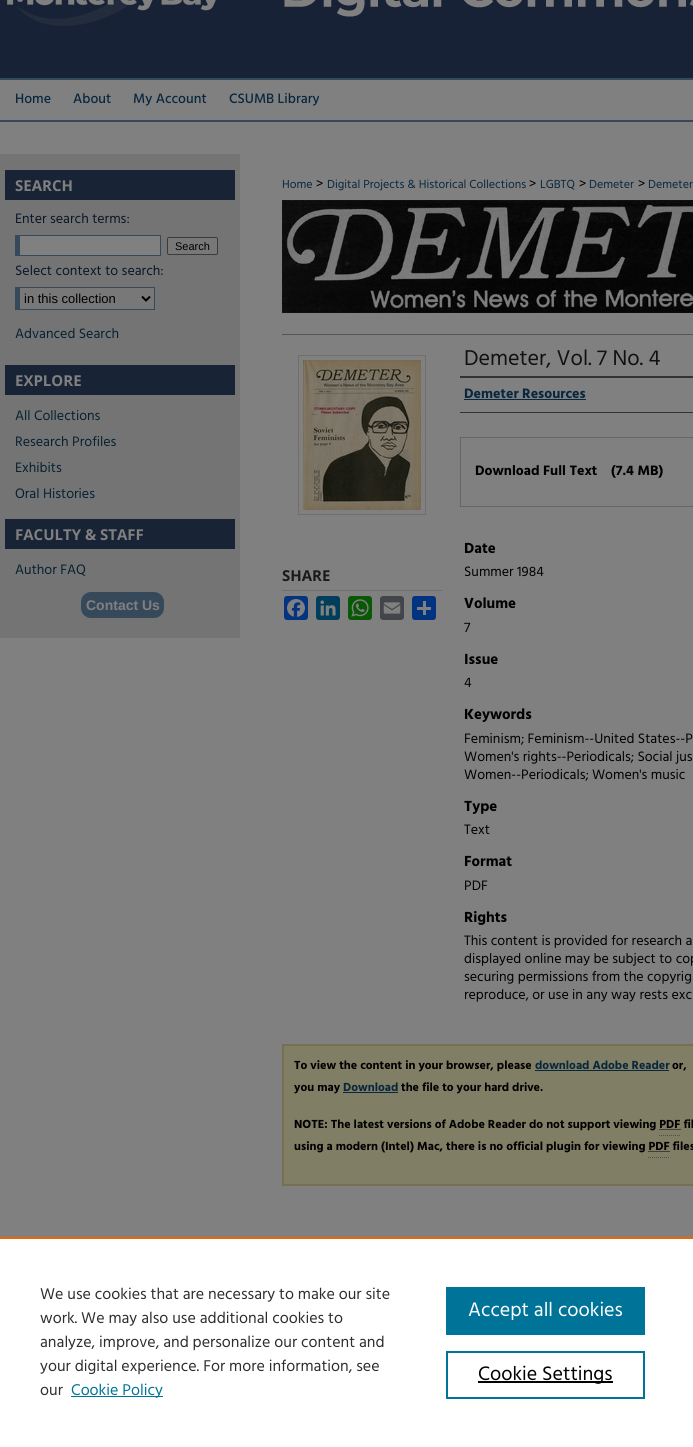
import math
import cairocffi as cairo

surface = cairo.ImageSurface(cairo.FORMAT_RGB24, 693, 1447)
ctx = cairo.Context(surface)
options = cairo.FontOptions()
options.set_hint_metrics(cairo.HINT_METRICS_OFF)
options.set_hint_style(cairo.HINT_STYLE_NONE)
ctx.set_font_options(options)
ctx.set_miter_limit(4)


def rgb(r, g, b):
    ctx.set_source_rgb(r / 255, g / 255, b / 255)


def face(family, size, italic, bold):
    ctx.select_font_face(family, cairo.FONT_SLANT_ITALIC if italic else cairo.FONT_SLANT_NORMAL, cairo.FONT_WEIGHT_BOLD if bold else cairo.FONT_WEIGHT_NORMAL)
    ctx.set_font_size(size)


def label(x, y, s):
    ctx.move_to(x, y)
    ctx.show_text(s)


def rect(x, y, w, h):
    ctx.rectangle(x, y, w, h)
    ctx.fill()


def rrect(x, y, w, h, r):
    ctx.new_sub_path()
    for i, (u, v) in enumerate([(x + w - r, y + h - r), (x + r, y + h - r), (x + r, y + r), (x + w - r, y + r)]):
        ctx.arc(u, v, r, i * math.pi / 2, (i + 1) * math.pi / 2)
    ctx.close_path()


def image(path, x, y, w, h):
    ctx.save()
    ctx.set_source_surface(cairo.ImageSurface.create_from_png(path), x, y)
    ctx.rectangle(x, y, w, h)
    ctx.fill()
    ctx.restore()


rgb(128, 128, 128)
ctx.paint()
image('image0.png', 0, 78, 693, 44)
image('image1.png', 0, 0, 693, 78)
image('image2.png', 7, 0, 209, 26)
face('Hind Medium', 14, 0, 0)
rgb(8, 39, 62)
label(15, 103, 'Home')
label(73, 103, 'About')
label(133, 103, 'My Account')
label(229, 103, 'CSUMB Library')
rgb(116, 116, 116)
rect(0, 154, 240, 484)
rgb(25, 35, 54)
rect(5, 170, 230, 30)
face('Open Sans', 15, 0, 1)
rgb(128, 128, 128)
label(15, 191, 'SEARCH')
face('Hind', 14, 0, 0)
rgb(9, 23, 40)
label(15, 223, 'Enter search terms:')
rgb(128, 128, 128)
rect(20, 236, 140, 19)
rgb(54, 73, 91)
rect(15, 235, 146, 1)
rect(160, 235, 1, 21)
rect(15, 255, 146, 1)
rect(15, 235, 5, 21)
rgb(120, 120, 120)
rrect(167.5, 237.5, 50, 17, 1.5)
ctx.fill_preserve()
rgb(59, 59, 59)
ctx.set_line_width(1)
ctx.stroke()
face('Liberation Sans', 11, 0, 0)
rgb(0, 0, 0)
label(175, 250, 'Search')
face('Hind', 14, 0, 0)
rgb(9, 23, 40)
label(15, 275, 'Select context to search:')
rgb(120, 120, 120)
rect(20, 288, 134, 21)
rgb(54, 73, 91)
rect(15, 287, 140, 1)
rect(154, 287, 1, 23)
rect(15, 309, 140, 1)
rect(15, 287, 5, 23)
ctx.new_path()
ctx.move_to(142, 296.5)
ctx.line_to(146, 300.5)
ctx.line_to(150, 296.5)
rgb(0, 0, 0)
ctx.set_line_width(2)
ctx.stroke()
face('Liberation Sans', 13, 0, 0)
label(24, 303, 'in this collection')
face('Hind', 14, 0, 0)
rgb(7, 32, 49)
label(15, 338, 'Advanced Search')
rgb(25, 35, 54)
rect(5, 365, 230, 30)
face('Open Sans', 15, 0, 1)
rgb(128, 128, 128)
label(15, 386, 'EXPLORE')
face('Hind', 14, 0, 0)
rgb(7, 32, 49)
label(15, 420, 'All Collections')
label(15, 446, 'Research Profiles')
label(15, 472, 'Exhibits')
label(15, 498, 'Oral Histories')
rgb(25, 35, 54)
rect(5, 519, 230, 30)
face('Open Sans', 15, 0, 1)
rgb(128, 128, 128)
label(15, 540, 'FACULTY & STAFF')
face('Hind', 14, 0, 0)
rgb(7, 32, 49)
label(15, 574, 'Author FAQ')
rgb(54, 73, 91)
rrect(81, 592, 83, 26, 10)
ctx.fill()
face('Liberation Sans', 14, 0, 1)
rgb(128, 128, 128)
label(86, 610, 'Contact Us')
face('Hind', 12, 0, 0)
rgb(8, 39, 62)
label(282, 188, 'Home')
face('Hind', 14, 0, 0)
rgb(0, 0, 0)
label(316, 188, '>')
face('Hind', 12, 0, 0)
rgb(8, 39, 62)
label(327, 188, 'Digital Projects & Historical Collections')
face('Hind', 14, 0, 0)
rgb(0, 0, 0)
label(529, 188, '>')
face('Hind', 12, 0, 0)
rgb(8, 39, 62)
label(540, 188, 'LGBTQ')
face('Hind', 14, 0, 0)
rgb(0, 0, 0)
label(579, 188, '>')
face('Hind', 12, 0, 0)
rgb(8, 39, 62)
label(589, 188, 'Demeter')
face('Hind', 14, 0, 0)
rgb(0, 0, 0)
label(638, 188, '>')
face('Hind', 12, 0, 0)
rgb(8, 39, 62)
label(648, 188, 'Demeter')
image('image3.png', 282, 200, 411, 113)
ctx.rectangle(298.5, 355.5, 127, 159)
rgb(111, 111, 111)
ctx.set_line_width(1)
ctx.stroke()
image('image4.png', 303, 360, 118, 150)
rect(282, 590, 160, 1)
face('Open Sans', 15, 0, 1)
rgb(26, 26, 26)
label(282, 581, 'SHARE')
rgb(4, 51, 128)
rrect(284, 596, 24, 24, 3)
ctx.fill()
image('image5.png', 287, 599, 18, 18)
rgb(0, 62, 91)
rrect(316, 596, 24, 24, 3)
ctx.fill()
image('image6.png', 320, 600, 16, 16)
rgb(9, 88, 5)
rrect(348, 596, 24, 24, 3)
ctx.fill()
image('image7.png', 351, 599, 18, 18)
rgb(68, 69, 72)
rrect(380, 596, 24, 24, 3)
ctx.fill()
image('image8.png', 383, 602, 18, 12)
rgb(1, 51, 128)
rrect(412, 596, 24, 24, 3)
ctx.fill()
rgb(128, 128, 128)
rect(423, 601, 3, 14)
rect(417, 607, 14, 3)
rgb(85, 85, 85)
rect(282, 334, 411, 1)
face('Hind', 22, 0, 0)
rgb(17, 17, 17)
label(464, 365, 'Demeter, Vol. 7 No. 4')
rgb(51, 51, 51)
rect(460, 376, 233, 2)
rect(460, 412, 233, 1)
face('Hind', 14, 0, 1)
rgb(8, 39, 62)
label(464, 398, 'Demeter Resources')
rect(464, 399, 122, 1)
ctx.rectangle(460.5, 437.5, 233, 69)
rgb(102, 102, 102)
ctx.stroke()
rgb(0, 0, 0)
label(475, 475, 'Download Full Text')
label(611, 475, '(7.4 MB)')
face('Hind', 15, 0, 1)
label(464, 553, 'Date')
face('Hind', 14, 0, 0)
label(464, 576, 'Summer 1984')
face('Hind', 15, 0, 1)
label(464, 608, 'Volume')
face('Hind', 14, 0, 0)
label(464, 632, '7')
face('Hind', 15, 0, 1)
label(464, 664, 'Issue')
face('Hind', 14, 0, 0)
label(464, 687, '4')
face('Hind', 15, 0, 1)
label(464, 719, 'Keywords')
face('Hind', 14, 0, 0)
label(464, 743, 'Feminism; Feminism--United States--P')
label(464, 761, 'Women\'s rights--Periodicals; Social jus')
label(464, 779, 'Women--Periodicals; Women\'s music')
face('Hind', 15, 0, 1)
label(464, 811, 'Type')
face('Hind', 14, 0, 0)
label(464, 834, 'Text')
face('Hind', 15, 0, 1)
label(464, 866, 'Format')
face('Hind', 14, 0, 0)
label(464, 890, 'PDF')
face('Hind', 15, 0, 1)
label(464, 922, 'Rights')
face('Hind', 14, 0, 0)
label(464, 945, 'This content is provided for research a')
label(464, 963, 'displayed online may be subject to cop')
label(464, 981, 'securing permissions from the copyrig')
label(464, 999, 'reproduce, or use in any way rests exc')
rgb(128, 126, 101)
ctx.rectangle(283, 1045, 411, 140)
ctx.fill_preserve()
rgb(120, 110, 81)
ctx.set_line_width(2)
ctx.stroke()
face('Hind', 12, 0, 1)
rgb(0, 0, 0)
label(294, 1069, 'To view the content in your browser, please')
rgb(8, 39, 62)
label(535, 1069, 'download Adobe Reader')
rect(535, 1070, 134, 1)
rgb(0, 0, 0)
label(672, 1069, 'or,')
label(294, 1091, 'you may')
rgb(8, 39, 62)
label(343, 1091, 'Download')
rect(343, 1092, 55, 1)
rgb(0, 0, 0)
label(401, 1091, 'the file to your hard drive.')
label(294, 1128, 'NOTE: The latest versions of Adobe Reader do not support viewing PDF fil')
ctx.new_path()
ctx.move_to(659.5, 1129.5)
ctx.line_to(680.5, 1129.5)
ctx.set_line_width(1)
ctx.set_dash([1, 1])
ctx.stroke()
ctx.new_path()
ctx.move_to(659, 1135.5)
ctx.line_to(680, 1135.5)
rgb(77, 77, 77)
ctx.stroke()
rgb(0, 0, 0)
label(294, 1150, 'using a modern (Intel) Mac, there is no official plugin for viewing PDF files')
ctx.new_path()
ctx.move_to(648.5, 1151.5)
ctx.line_to(669.5, 1151.5)
ctx.stroke()
ctx.new_path()
ctx.move_to(648, 1157.5)
ctx.line_to(669, 1157.5)
rgb(77, 77, 77)
ctx.stroke()
rgb(255, 255, 255)
rect(0, 1239, 693, 208)
rgb(235, 101, 0)
rect(0, 1237, 693, 2)
face('Hind', 16, 0, 0)
rgb(46, 46, 46)
label(40, 1299, 'We use cookies that are necessary to make our site')
label(40, 1323, 'work. We may also use additional cookies to')
label(40, 1347, 'analyze, improve, and personalize our content and')
label(40, 1371, 'your digital experience. For more information, see')
label(40, 1395, 'our')
rgb(0, 115, 152)
rect(71, 1396, 92, 1)
label(71, 1395, 'Cookie Policy')
rect(446, 1287, 199, 48)
face('Hind', 20, 0, 0)
rgb(255, 255, 255)
label(468, 1316, 'Accept all cookies')
ctx.rectangle(447, 1352, 197, 46)
rgb(0, 115, 152)
ctx.set_line_width(2)
ctx.set_dash([])
ctx.stroke()
rgb(0, 0, 0)
rect(478, 1381, 135, 2)
label(478, 1380, 'Cookie Settings')
surface.write_to_png('render.png')
